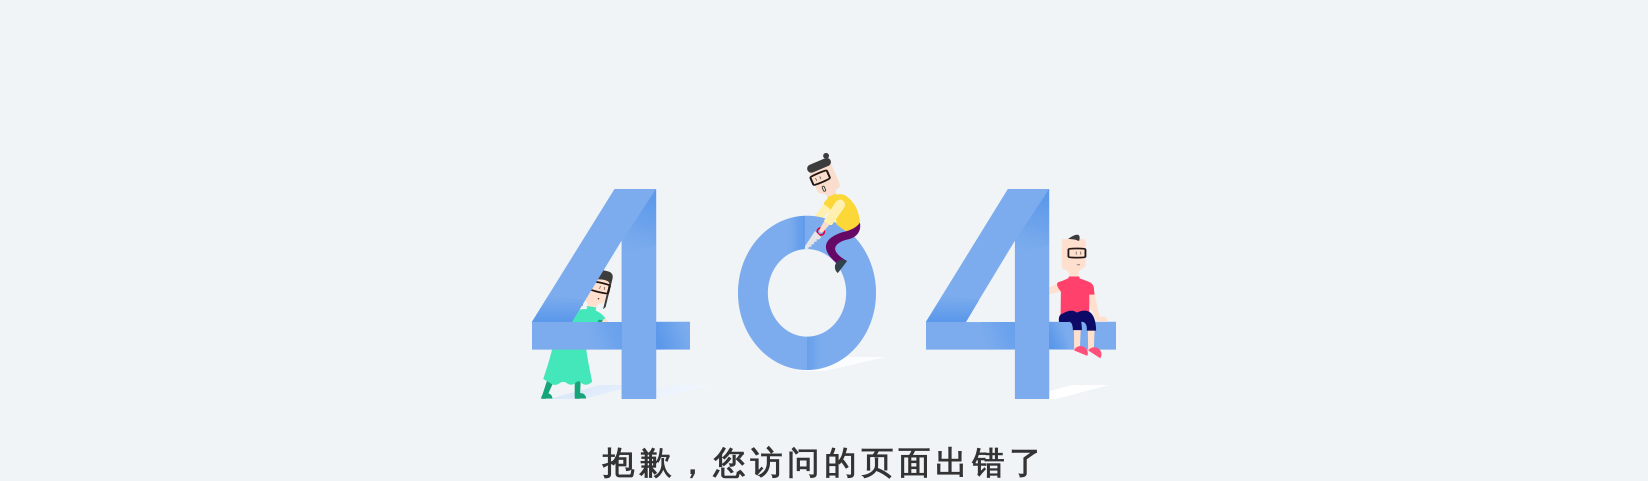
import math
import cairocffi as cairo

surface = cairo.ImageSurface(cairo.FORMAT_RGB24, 1648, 481)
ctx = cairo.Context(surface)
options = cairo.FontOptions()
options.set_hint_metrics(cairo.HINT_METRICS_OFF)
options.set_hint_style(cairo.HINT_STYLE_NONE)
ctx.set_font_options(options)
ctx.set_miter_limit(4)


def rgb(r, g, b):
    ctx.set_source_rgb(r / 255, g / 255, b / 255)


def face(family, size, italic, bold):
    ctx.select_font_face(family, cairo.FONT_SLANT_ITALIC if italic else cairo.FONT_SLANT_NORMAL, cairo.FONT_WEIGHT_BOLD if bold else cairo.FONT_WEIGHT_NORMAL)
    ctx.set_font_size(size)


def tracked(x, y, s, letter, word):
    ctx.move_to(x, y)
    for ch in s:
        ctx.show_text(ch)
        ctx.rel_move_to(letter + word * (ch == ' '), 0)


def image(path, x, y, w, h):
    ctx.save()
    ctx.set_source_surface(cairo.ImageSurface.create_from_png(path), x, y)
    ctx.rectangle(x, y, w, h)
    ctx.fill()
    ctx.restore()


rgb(240, 244, 247)
ctx.paint()
image('image0.png', 532, 153, 584, 246)
face('WenQuanYi Zen Hei', 32, 0, 1)
rgb(51, 51, 51)
tracked(602, 474, '抱歉，您访问的页面出错了', 5, 0)
surface.write_to_png('render.png')
